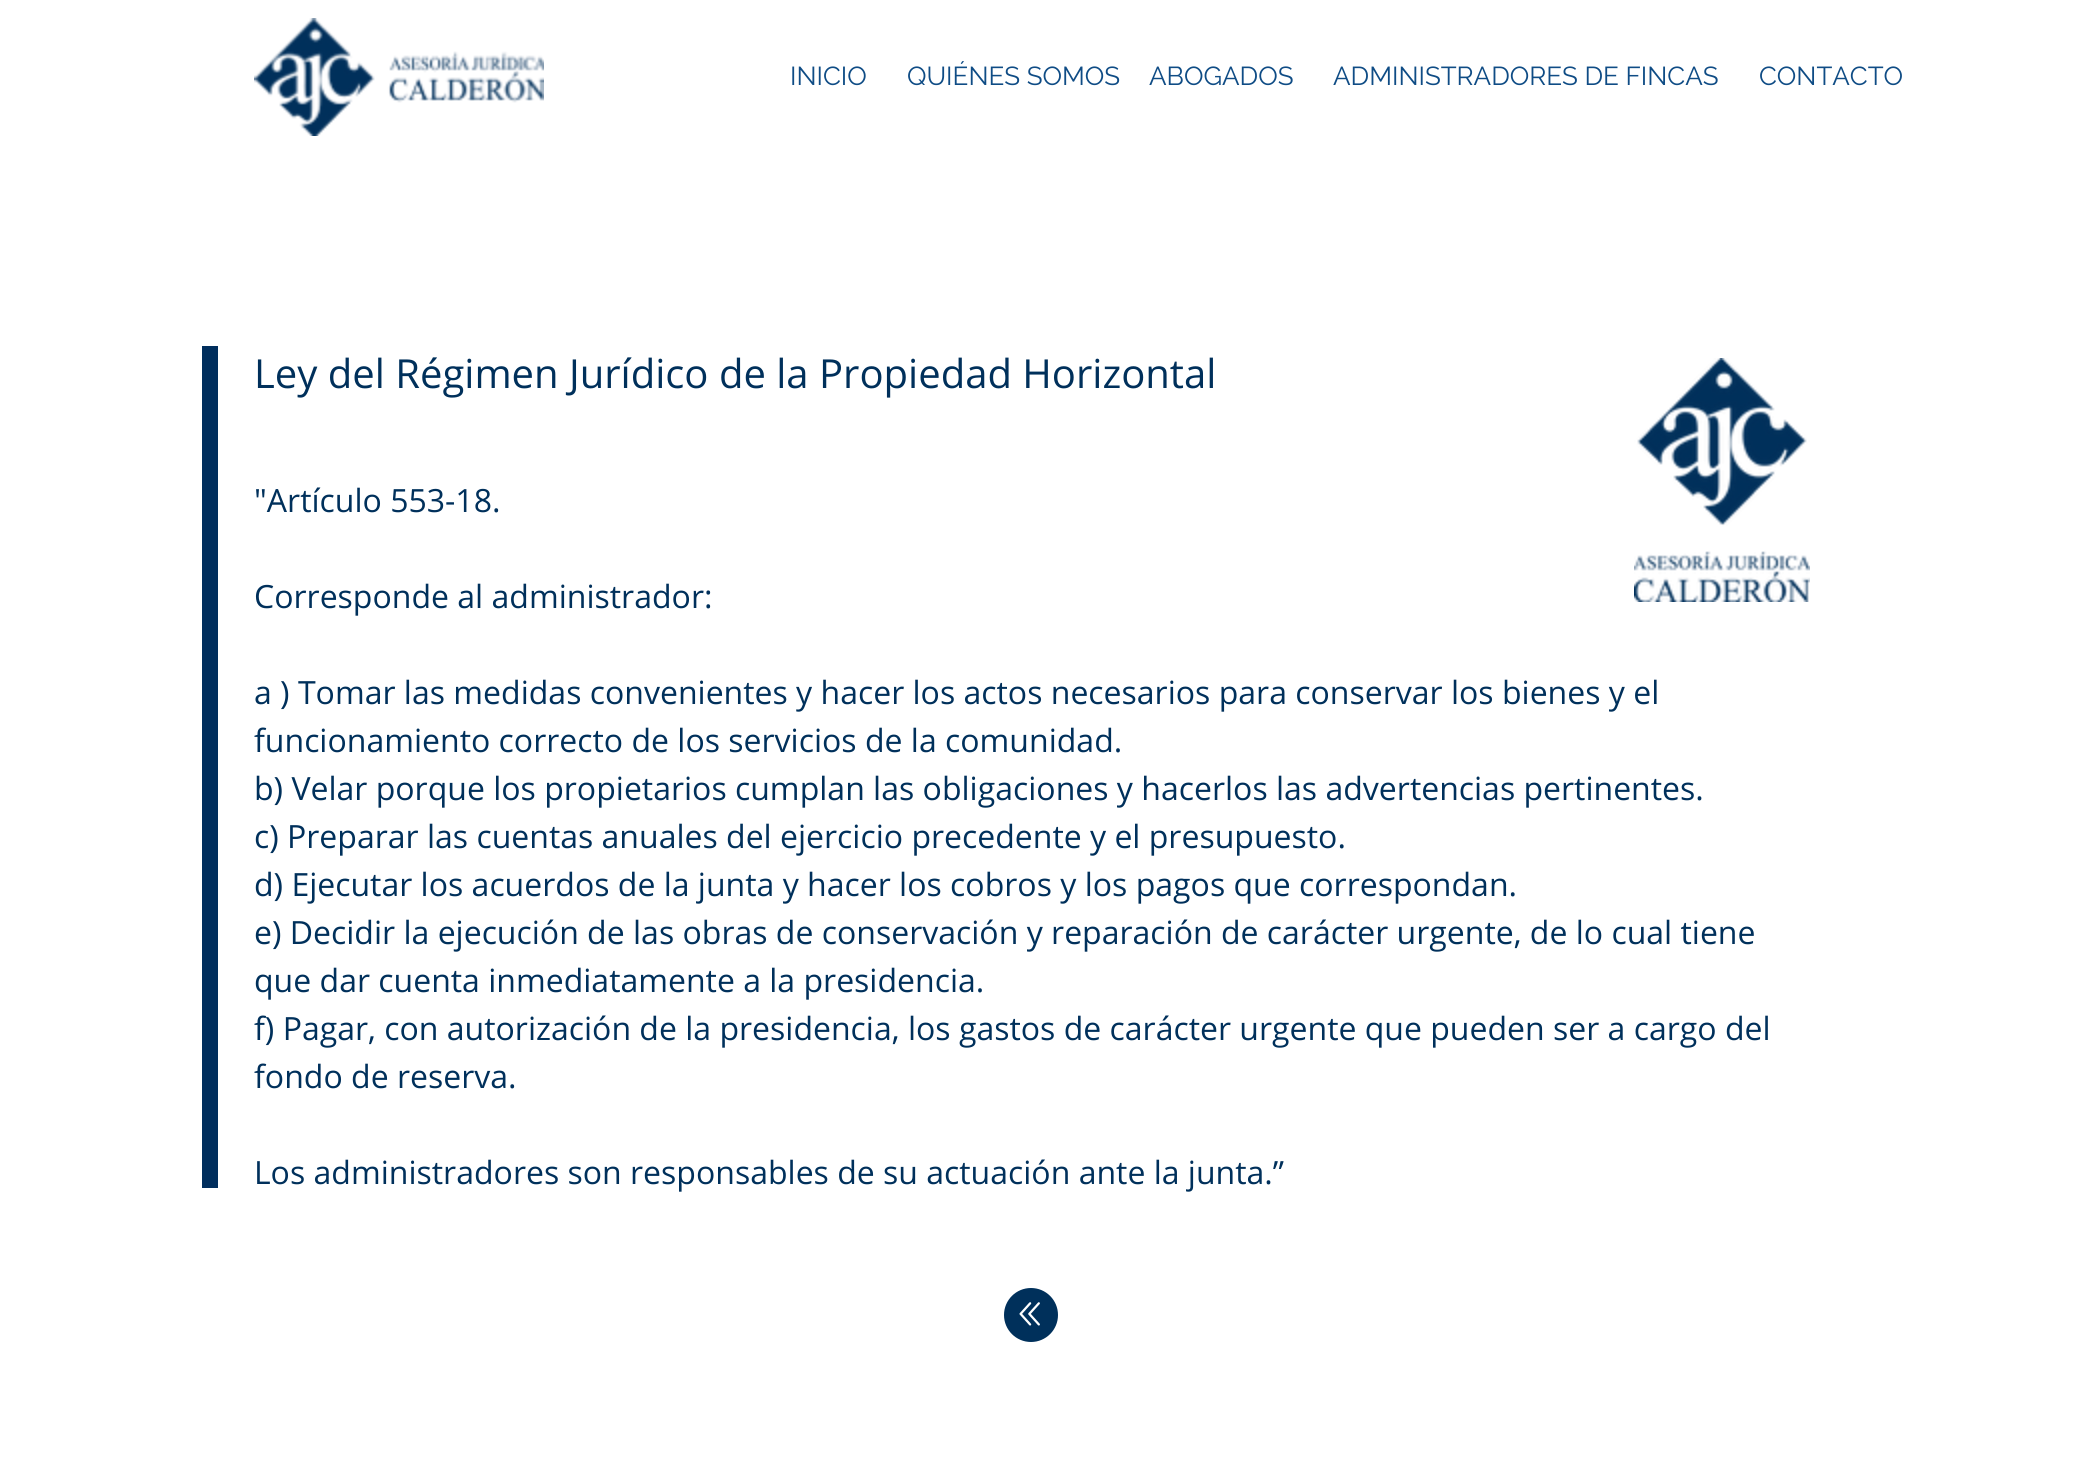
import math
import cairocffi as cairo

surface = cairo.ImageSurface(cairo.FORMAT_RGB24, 2080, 1474)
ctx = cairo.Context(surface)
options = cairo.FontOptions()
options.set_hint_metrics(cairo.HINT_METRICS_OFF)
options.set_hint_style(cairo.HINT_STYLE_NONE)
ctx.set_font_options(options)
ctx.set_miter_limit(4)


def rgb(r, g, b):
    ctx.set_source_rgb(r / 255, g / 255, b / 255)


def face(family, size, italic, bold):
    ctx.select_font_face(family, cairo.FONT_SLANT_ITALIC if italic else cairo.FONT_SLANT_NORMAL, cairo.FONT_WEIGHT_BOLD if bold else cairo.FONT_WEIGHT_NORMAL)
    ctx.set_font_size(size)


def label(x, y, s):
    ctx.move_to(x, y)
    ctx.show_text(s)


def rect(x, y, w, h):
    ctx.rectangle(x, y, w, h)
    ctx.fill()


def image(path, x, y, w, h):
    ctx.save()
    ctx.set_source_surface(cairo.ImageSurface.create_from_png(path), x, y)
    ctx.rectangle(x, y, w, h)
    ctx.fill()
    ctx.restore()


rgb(255, 255, 255)
ctx.paint()
image('image0.png', 254, 18, 290, 118)
face('Raleway', 26, 0, 0)
rgb(15, 76, 133)
label(790, 85, 'INICIO')
label(907, 85, 'QUIÉNES SOMOS')
label(1149, 85, 'ABOGADOS')
label(1333, 85, 'ADMINISTRADORES DE FINCAS')
label(1759, 85, 'CONTACTO')
rgb(0, 46, 93)
rect(202, 346, 16, 842)
face('Open Sans', 40, 0, 0)
rgb(0, 48, 91)
label(254, 388, 'Ley del Régimen Jurídico de la Propiedad Horizontal')
image('image1.png', 1634, 358, 176, 244)
face('Open Sans', 32, 0, 0)
label(254, 512, '"Artículo 553-18.')
label(254, 608, 'Corresponde al administrador:')
label(254, 704, 'a ) Tomar las medidas convenientes y hacer los actos necesarios para conservar los bienes y el')
label(254, 752, 'funcionamiento correcto de los servicios de la comunidad.')
label(254, 800, 'b) Velar porque los propietarios cumplan las obligaciones y hacerlos las advertencias pertinentes.')
label(254, 848, 'c) Preparar las cuentas anuales del ejercicio precedente y el presupuesto.')
label(254, 896, 'd) Ejecutar los acuerdos de la junta y hacer los cobros y los pagos que correspondan.')
label(254, 944, 'e) Decidir la ejecución de las obras de conservación y reparación de carácter urgente, de lo cual tiene')
label(254, 992, 'que dar cuenta inmediatamente a la presidencia.')
label(254, 1040, 'f) Pagar, con autorización de la presidencia, los gastos de carácter urgente que pueden ser a cargo del')
label(254, 1088, 'fondo de reserva.')
label(254, 1184, 'Los administradores son responsables de su actuación ante la junta.”')
image('image2.png', 1004, 1288, 54, 54)
surface.write_to_png('render.png')
